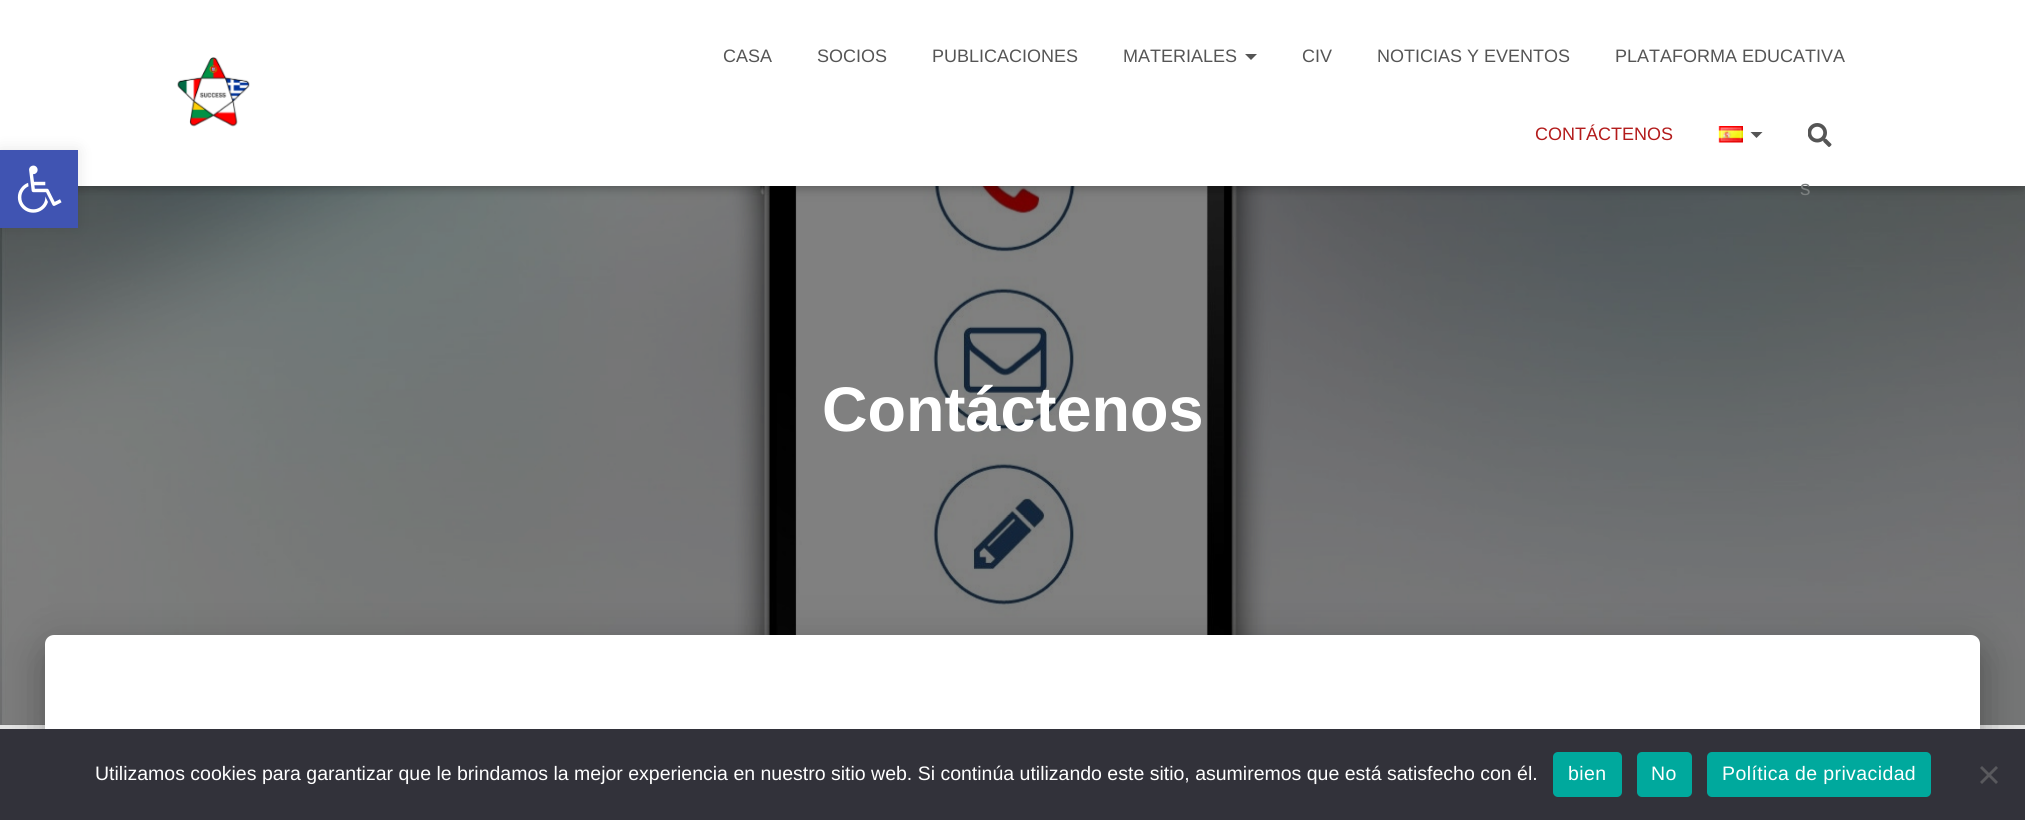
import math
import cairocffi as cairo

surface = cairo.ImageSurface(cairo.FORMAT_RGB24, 2025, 820)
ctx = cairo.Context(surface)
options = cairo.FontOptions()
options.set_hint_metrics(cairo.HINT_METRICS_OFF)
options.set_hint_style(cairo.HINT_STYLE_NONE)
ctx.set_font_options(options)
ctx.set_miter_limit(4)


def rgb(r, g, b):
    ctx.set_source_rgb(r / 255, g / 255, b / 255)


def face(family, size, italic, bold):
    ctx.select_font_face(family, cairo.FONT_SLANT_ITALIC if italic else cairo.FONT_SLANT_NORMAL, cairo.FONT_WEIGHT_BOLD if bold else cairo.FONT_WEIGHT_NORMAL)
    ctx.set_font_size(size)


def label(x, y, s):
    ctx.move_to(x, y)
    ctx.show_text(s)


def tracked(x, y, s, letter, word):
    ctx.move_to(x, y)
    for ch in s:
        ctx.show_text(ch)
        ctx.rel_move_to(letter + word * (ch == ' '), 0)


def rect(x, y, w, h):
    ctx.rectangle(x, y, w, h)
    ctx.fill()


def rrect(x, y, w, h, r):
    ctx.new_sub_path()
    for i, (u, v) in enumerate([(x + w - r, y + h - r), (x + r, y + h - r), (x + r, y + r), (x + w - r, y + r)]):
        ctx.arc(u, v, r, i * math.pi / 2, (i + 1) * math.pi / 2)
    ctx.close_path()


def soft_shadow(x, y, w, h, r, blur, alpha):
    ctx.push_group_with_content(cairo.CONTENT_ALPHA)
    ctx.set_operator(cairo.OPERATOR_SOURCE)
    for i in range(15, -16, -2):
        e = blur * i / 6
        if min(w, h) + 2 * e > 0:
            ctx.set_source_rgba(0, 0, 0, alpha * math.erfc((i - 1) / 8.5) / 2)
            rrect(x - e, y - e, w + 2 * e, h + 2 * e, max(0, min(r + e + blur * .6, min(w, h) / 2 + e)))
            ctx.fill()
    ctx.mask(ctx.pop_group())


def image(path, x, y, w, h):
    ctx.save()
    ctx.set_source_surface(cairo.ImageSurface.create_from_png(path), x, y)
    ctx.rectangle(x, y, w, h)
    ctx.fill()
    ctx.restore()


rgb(229, 229, 229)
ctx.paint()
rgb(115, 115, 115)
rect(0, 723, 2025, 2)
image('image4.png', 0, 186, 2025, 539)
rgb(0, 0, 0)
soft_shadow(3, 9, 2019, 180, 0, 4, 0.1)
soft_shadow(0, 2, 2025, 186, 0, 7.5, 0.12)
soft_shadow(9, 11, 2007, 168, 0, 7.5, 0.42)
rgb(255, 255, 255)
rect(0, 0, 2025, 186)
rgb(0, 0, 0)
soft_shadow(0, 150, 78, 78, 0, 7.5, 0.1)
rgb(64, 84, 178)
rect(0, 150, 78, 78)
image('image0.png', 17, 165, 45, 48)
image('image1.png', 177, 57, 73, 70)
face('Liberation Sans', 18, 0, 0)
rgb(85, 85, 85)
label(723, 62, 'CASA')
label(817, 62, 'SOCIOS')
label(932, 62, 'PUBLICACIONES')
label(1123, 62, 'MATERIALES')
ctx.new_path()
ctx.move_to(1245, 54)
ctx.line_to(1257, 54)
ctx.line_to(1251, 60)
ctx.close_path()
ctx.fill()
label(1302, 62, 'CIV')
label(1377, 62, 'NOTICIAS Y EVENTOS')
label(1615, 62, 'PLATAFORMA EDUCATIVA')
rgb(179, 27, 27)
label(1535, 140, 'CONTÁCTENOS')
image('image2.png', 1718, 126, 25, 17)
rgb(85, 85, 85)
ctx.new_path()
ctx.move_to(1750.5, 132)
ctx.line_to(1762.5, 132)
ctx.line_to(1756.5, 138)
ctx.close_path()
ctx.fill()
image('image3.png', 1808, 123, 24, 24)
face('Liberation Sans', 21, 0, 0)
rgb(123, 127, 127)
label(1800, 195, 's')
face('Liberation Sans', 63, 0, 1)
rgb(255, 255, 255)
label(822, 431, 'Contáctenos')
rgb(0, 0, 0)
soft_shadow(53, 654, 1920, 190, 1.5, 7.5, 0.2)
soft_shadow(38, 636, 1950, 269, 17, 22.5, 0.12)
soft_shadow(42, 656, 1941, 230, 12, 18, 0.14)
rgb(255, 255, 255)
ctx.new_path()
ctx.move_to(54, 635)
ctx.line_to(1971, 635)
ctx.curve_to(1976, 635, 1980, 639, 1980, 644)
ctx.line_to(1980, 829)
ctx.line_to(45, 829)
ctx.line_to(45, 644)
ctx.curve_to(45, 639, 49, 635, 54, 635)
ctx.close_path()
ctx.fill()
rgb(50, 50, 58)
rect(0, 729, 2025, 91)
face('Liberation Sans', 19.5, 0, 0)
rgb(255, 255, 255)
label(95, 780, 'Utilizamos cookies para garantizar que le brindamos la mejor experiencia en nuestro sitio web. Si continúa utilizando este sitio, asumiremos que está satisfecho con él.')
rgb(0, 169, 157)
rrect(1553, 752, 69, 45, 5)
ctx.fill()
rgb(255, 255, 255)
tracked(1568, 780, 'bien', 0.4, 0)
rgb(0, 169, 157)
rrect(1637, 752, 55, 45, 5)
ctx.fill()
rgb(255, 255, 255)
tracked(1651, 780, 'No', 0.4, 0)
rgb(0, 169, 157)
rrect(1707, 752, 224, 45, 5)
ctx.fill()
rgb(255, 255, 255)
tracked(1722, 780, 'Política de privacidad', 0.4, 0)
rgb(89, 89, 93)
ctx.new_path()
ctx.move_to(1996, 766)
ctx.line_to(1998, 768)
ctx.line_to(1982, 784)
ctx.line_to(1980, 782)
ctx.close_path()
ctx.fill()
ctx.new_path()
ctx.move_to(1980, 768)
ctx.line_to(1982, 766)
ctx.line_to(1998, 782)
ctx.line_to(1996, 784)
ctx.close_path()
ctx.fill()
surface.write_to_png('render.png')
